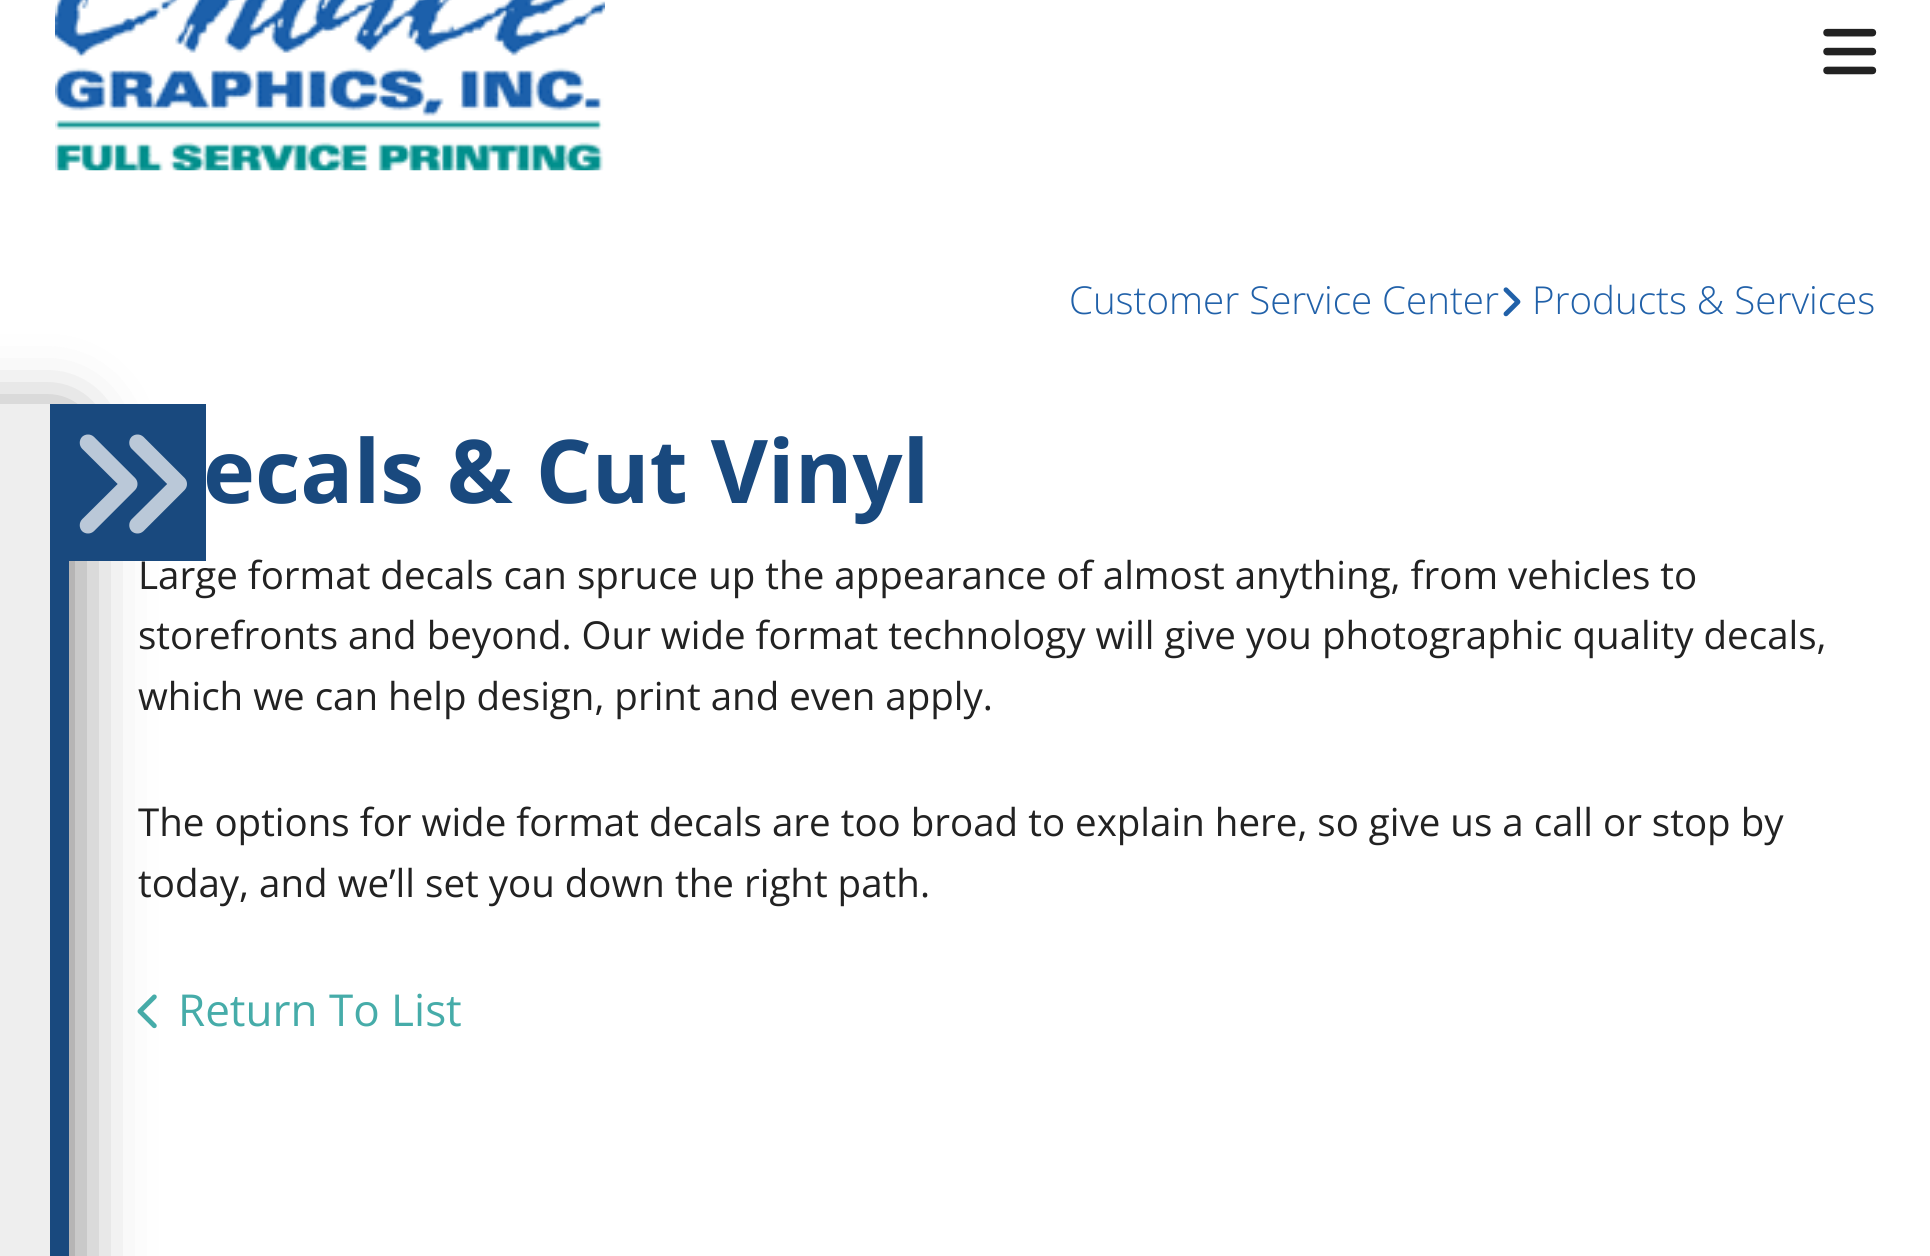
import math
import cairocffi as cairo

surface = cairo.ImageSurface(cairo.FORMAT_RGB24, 1930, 1256)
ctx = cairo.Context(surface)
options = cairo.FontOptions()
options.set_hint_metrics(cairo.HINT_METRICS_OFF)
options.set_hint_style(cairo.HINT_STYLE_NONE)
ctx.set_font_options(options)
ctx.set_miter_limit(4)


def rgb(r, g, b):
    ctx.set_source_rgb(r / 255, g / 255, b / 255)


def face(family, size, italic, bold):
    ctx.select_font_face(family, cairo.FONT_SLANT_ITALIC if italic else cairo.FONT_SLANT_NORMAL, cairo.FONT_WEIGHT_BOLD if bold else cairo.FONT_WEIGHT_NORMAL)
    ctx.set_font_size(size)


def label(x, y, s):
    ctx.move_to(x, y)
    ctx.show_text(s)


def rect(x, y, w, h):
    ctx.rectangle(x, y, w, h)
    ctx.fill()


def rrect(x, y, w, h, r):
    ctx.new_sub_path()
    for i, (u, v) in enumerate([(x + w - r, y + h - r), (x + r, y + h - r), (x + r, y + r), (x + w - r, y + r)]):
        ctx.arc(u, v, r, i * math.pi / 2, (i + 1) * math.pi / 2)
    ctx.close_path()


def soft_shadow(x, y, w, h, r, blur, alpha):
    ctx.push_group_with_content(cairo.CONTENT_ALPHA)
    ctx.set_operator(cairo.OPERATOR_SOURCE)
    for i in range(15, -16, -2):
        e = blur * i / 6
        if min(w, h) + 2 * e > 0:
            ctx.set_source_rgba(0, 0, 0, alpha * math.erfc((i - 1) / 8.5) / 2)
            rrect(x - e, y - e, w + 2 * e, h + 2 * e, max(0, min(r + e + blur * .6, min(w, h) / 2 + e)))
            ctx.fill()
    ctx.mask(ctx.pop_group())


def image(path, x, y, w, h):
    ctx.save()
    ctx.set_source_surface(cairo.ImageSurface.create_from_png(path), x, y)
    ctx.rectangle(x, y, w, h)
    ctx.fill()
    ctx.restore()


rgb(255, 255, 255)
ctx.paint()
image('image0.png', 55, 0, 550, 171)
image('image1.png', 1823, 28, 54, 47)
face('Open Sans Light', 38.5, 0, 0)
rgb(33, 97, 169)
label(1069, 314, 'Customer Service Center')
image('image2.png', 1503, 287, 18, 30)
label(1532, 314, 'Products & Services')
image('image4.png', 137, 994, 20, 35)
rgb(74, 73, 73)
soft_shadow(-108, 424, 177, 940, 0, 36, 0.81)
rgb(238, 238, 238)
rect(0, 404, 50, 852)
rgb(25, 73, 126)
rect(50, 561, 19, 695)
face('Open Sans', 38.5, 0, 0)
rgb(34, 34, 34)
label(138, 589, 'Large format decals can spruce up the appearance of almost anything, from vehicles to')
rgb(25, 73, 126)
rect(50, 404, 156, 157)
image('image3.png', 79, 434, 108, 100)
face('Open Sans', 88, 0, 1)
label(203, 503, 'ecals & Cut Vinyl')
face('Open Sans', 38.5, 0, 0)
rgb(34, 34, 34)
label(138, 649, 'storefronts and beyond. Our wide format technology will give you photographic quality decals,')
label(138, 710, 'which we can help design, print and even apply.')
label(138, 836, 'The options for wide format decals are too broad to explain here, so give us a call or stop by')
label(138, 897, 'today, and we’ll set you down the right path.')
face('Open Sans', 44, 0, 0)
rgb(70, 172, 169)
label(178, 1026, 'Return To List')
surface.write_to_png('render.png')
